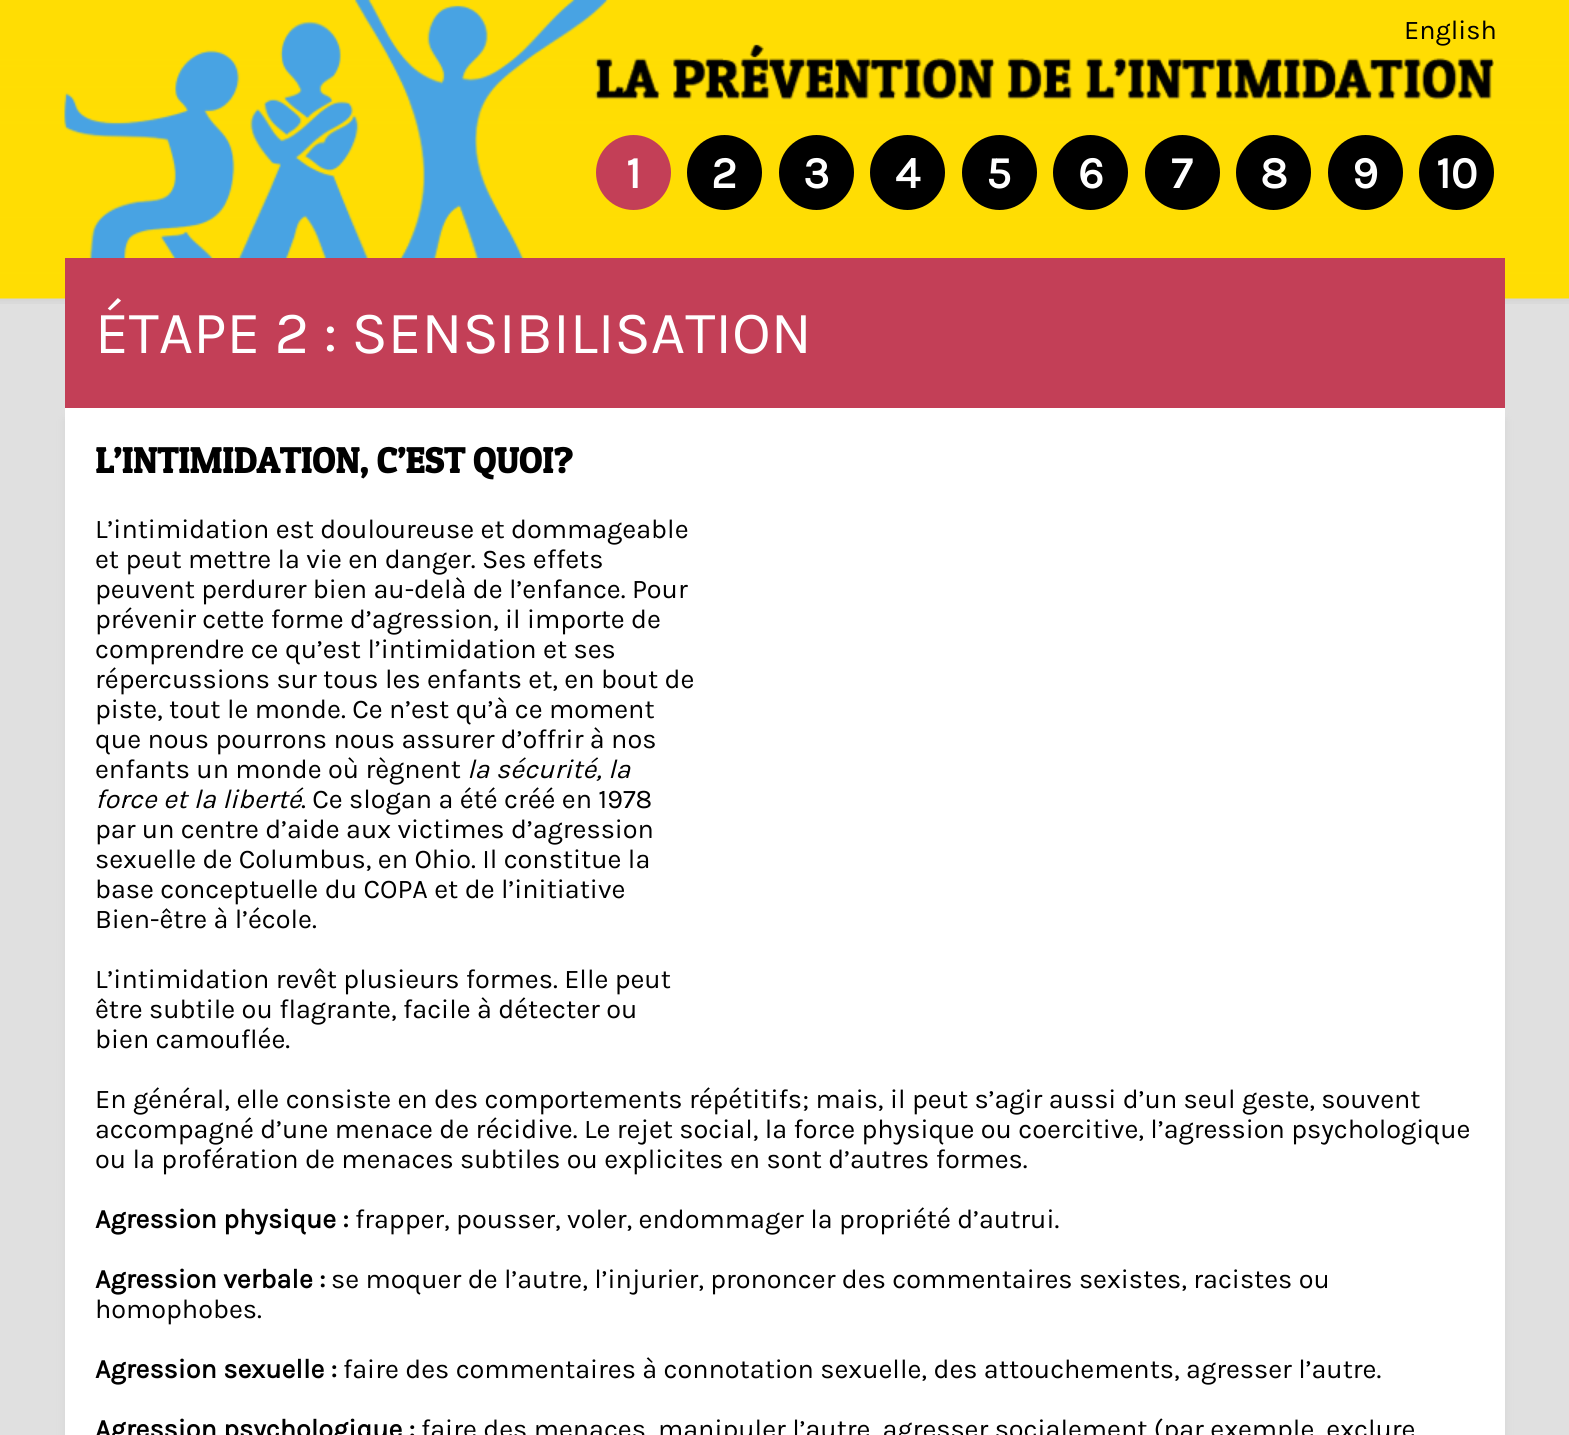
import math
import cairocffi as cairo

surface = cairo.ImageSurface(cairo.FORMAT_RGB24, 1569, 1435)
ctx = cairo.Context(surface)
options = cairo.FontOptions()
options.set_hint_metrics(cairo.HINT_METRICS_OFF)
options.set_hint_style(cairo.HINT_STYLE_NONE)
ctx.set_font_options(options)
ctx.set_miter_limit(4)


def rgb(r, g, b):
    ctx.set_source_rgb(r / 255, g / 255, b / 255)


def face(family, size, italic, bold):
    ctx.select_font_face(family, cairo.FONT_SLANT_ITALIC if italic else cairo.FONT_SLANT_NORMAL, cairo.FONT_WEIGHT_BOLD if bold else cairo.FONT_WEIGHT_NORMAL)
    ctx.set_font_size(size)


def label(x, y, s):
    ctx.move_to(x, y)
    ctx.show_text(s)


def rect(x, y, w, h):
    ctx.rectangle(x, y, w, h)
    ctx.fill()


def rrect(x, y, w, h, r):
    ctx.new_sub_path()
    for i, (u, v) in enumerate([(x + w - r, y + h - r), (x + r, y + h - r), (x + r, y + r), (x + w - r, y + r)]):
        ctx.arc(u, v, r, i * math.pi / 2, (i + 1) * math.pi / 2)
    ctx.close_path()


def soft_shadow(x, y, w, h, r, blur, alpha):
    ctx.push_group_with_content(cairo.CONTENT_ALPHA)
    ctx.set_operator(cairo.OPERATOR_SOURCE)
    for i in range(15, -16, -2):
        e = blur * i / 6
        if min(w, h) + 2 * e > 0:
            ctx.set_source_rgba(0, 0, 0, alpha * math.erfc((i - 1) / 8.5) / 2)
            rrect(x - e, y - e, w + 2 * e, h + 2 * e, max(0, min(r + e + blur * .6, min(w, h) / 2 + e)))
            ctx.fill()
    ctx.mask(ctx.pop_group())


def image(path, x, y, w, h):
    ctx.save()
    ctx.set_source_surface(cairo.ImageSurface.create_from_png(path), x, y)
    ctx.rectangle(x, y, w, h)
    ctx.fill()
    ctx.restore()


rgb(224, 224, 224)
ctx.paint()
image('image0.png', 0, 0, 1569, 304)
image('image1.png', 64, 0, 1430, 258)
face('Karla', 27, 0, 0)
rgb(0, 0, 0)
label(1404, 39, 'English')
rgb(195, 63, 87)
ctx.new_path()
ctx.arc(633.5, 172.5, 37.5, 0, 2 * math.pi)
ctx.fill()
face('Karla', 45, 0, 1)
rgb(255, 255, 255)
label(626, 188, '1')
rgb(0, 0, 0)
ctx.new_path()
ctx.arc(724.5, 172.5, 37.5, 0, 2 * math.pi)
ctx.fill()
rgb(255, 255, 255)
label(711, 188, '2')
rgb(0, 0, 0)
ctx.new_path()
ctx.arc(816.5, 172.5, 37.5, 0, 2 * math.pi)
ctx.fill()
rgb(255, 255, 255)
label(803, 188, '3')
rgb(0, 0, 0)
ctx.new_path()
ctx.arc(907.5, 172.5, 37.5, 0, 2 * math.pi)
ctx.fill()
rgb(255, 255, 255)
label(895, 188, '4')
rgb(0, 0, 0)
ctx.new_path()
ctx.arc(999.5, 172.5, 37.5, 0, 2 * math.pi)
ctx.fill()
rgb(255, 255, 255)
label(986, 188, '5')
rgb(0, 0, 0)
ctx.new_path()
ctx.arc(1090.5, 172.5, 37.5, 0, 2 * math.pi)
ctx.fill()
rgb(255, 255, 255)
label(1078, 188, '6')
rgb(0, 0, 0)
ctx.new_path()
ctx.arc(1182.5, 172.5, 37.5, 0, 2 * math.pi)
ctx.fill()
rgb(255, 255, 255)
label(1171, 188, '7')
rgb(0, 0, 0)
ctx.new_path()
ctx.arc(1273.5, 172.5, 37.5, 0, 2 * math.pi)
ctx.fill()
rgb(255, 255, 255)
label(1260, 188, '8')
rgb(0, 0, 0)
ctx.new_path()
ctx.arc(1365.5, 172.5, 37.5, 0, 2 * math.pi)
ctx.fill()
rgb(255, 255, 255)
label(1352, 188, '9')
rgb(0, 0, 0)
ctx.new_path()
ctx.arc(1456.5, 172.5, 37.5, 0, 2 * math.pi)
ctx.fill()
rgb(255, 255, 255)
label(1436, 188, '10')
rgb(195, 63, 87)
rect(65, 258, 1440, 150)
face('Karla', 60, 0, 0)
rgb(255, 255, 255)
label(95, 353, 'ÉTAPE 2 : SENSIBILISATION')
rgb(213, 213, 213)
soft_shadow(65, 420, 1440, 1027, 0, 4, 1)
rgb(255, 255, 255)
rect(65, 408, 1440, 1027)
face('Patua One', 36, 0, 1)
rgb(0, 0, 0)
label(95, 473, 'L’INTIMIDATION, C’EST QUOI?')
face('Karla', 27, 0, 0)
label(95, 538, 'L’intimidation est douloureuse et dommageable')
label(95, 568, 'et peut mettre la vie en danger. Ses effets')
label(95, 598, 'peuvent perdurer bien au-delà de l’enfance. Pour')
label(95, 628, 'prévenir cette forme d’agression, il importe de')
label(95, 658, 'comprendre ce qu’est l’intimidation et ses')
label(95, 688, 'répercussions sur tous les enfants et, en bout de')
label(95, 718, 'piste, tout le monde. Ce n’est qu’à ce moment')
label(95, 748, 'que nous pourrons nous assurer d’offrir à nos')
label(95, 778, 'enfants un monde où règnent')
face('Karla', 27, 1, 0)
label(467, 778, 'la sécurité, la')
label(95, 808, 'force et la liberté')
face('Karla', 27, 0, 0)
label(301, 808, '. Ce slogan a été créé en 1978')
label(95, 838, 'par un centre d’aide aux victimes d’agression')
label(95, 868, 'sexuelle de Columbus, en Ohio. Il constitue la')
label(95, 898, 'base conceptuelle du COPA et de l’initiative')
label(95, 928, 'Bien-être à l’école.')
label(95, 988, 'L’intimidation revêt plusieurs formes. Elle peut')
label(95, 1018, 'être subtile ou flagrante, facile à détecter ou')
label(95, 1048, 'bien camouflée.')
label(95, 1108, 'En général, elle consiste en des comportements répétitifs; mais, il peut s’agir aussi d’un seul geste, souvent')
label(95, 1138, 'accompagné d’une menace de récidive. Le rejet social, la force physique ou coercitive, l’agression psychologique')
label(95, 1168, 'ou la profération de menaces subtiles ou explicites en sont d’autres formes.')
face('Karla', 27, 0, 1)
label(95, 1228, 'Agression physique :')
face('Karla', 27, 0, 0)
label(355, 1228, 'frapper, pousser, voler, endommager la propriété d’autrui.')
face('Karla', 27, 0, 1)
label(95, 1288, 'Agression verbale :')
face('Karla', 27, 0, 0)
label(331, 1288, 'se moquer de l’autre, l’injurier, prononcer des commentaires sexistes, racistes ou')
label(95, 1318, 'homophobes.')
face('Karla', 27, 0, 1)
label(95, 1378, 'Agression sexuelle :')
face('Karla', 27, 0, 0)
label(343, 1378, 'faire des commentaires à connotation sexuelle, des attouchements, agresser l’autre.')
face('Karla', 27, 0, 1)
label(95, 1438, 'Agression psychologique :')
face('Karla', 27, 0, 0)
label(421, 1438, 'faire des menaces, manipuler l’autre, agresser socialement (par exemple, exclure')
surface.write_to_png('render.png')
